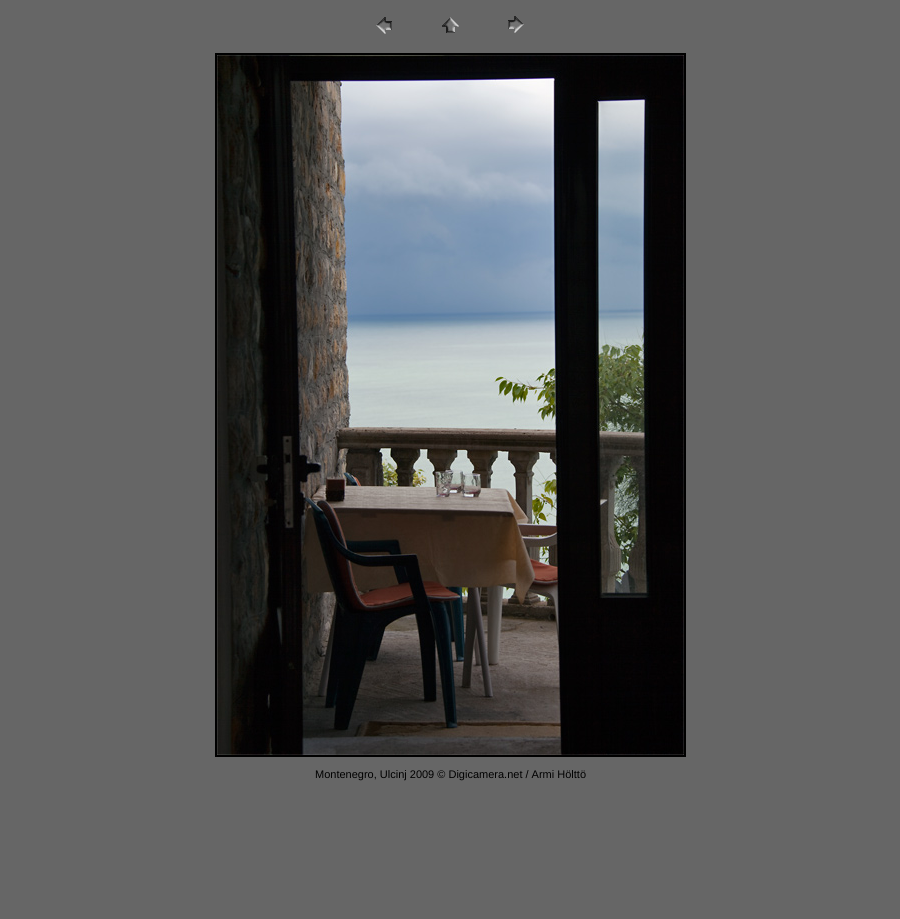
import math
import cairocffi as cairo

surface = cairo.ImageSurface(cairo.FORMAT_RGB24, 900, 919)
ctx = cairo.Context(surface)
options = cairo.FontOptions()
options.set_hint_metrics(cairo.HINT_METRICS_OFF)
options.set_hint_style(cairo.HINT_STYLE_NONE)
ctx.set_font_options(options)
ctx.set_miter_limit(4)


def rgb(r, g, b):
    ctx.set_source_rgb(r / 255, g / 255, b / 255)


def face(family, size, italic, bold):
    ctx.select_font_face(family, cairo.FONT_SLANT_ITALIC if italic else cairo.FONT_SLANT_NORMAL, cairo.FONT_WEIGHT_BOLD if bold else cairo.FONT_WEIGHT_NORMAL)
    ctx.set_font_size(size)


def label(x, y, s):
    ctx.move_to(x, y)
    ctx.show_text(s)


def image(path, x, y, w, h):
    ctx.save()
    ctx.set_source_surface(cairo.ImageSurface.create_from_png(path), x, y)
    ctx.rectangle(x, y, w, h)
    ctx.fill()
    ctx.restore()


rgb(102, 102, 102)
ctx.paint()
image('image0.png', 376, 17, 16, 17)
image('image1.png', 442, 17, 17, 16)
image('image2.png', 508, 16, 16, 17)
ctx.rectangle(216, 54, 469, 702)
rgb(0, 0, 0)
ctx.stroke()
image('image3.png', 217, 55, 467, 700)
face('Liberation Sans', 11, 0, 0)
label(315, 778, 'Montenegro, Ulcinj 2009 © Digicamera.net / Armi Hölttö')
surface.write_to_png('render.png')
